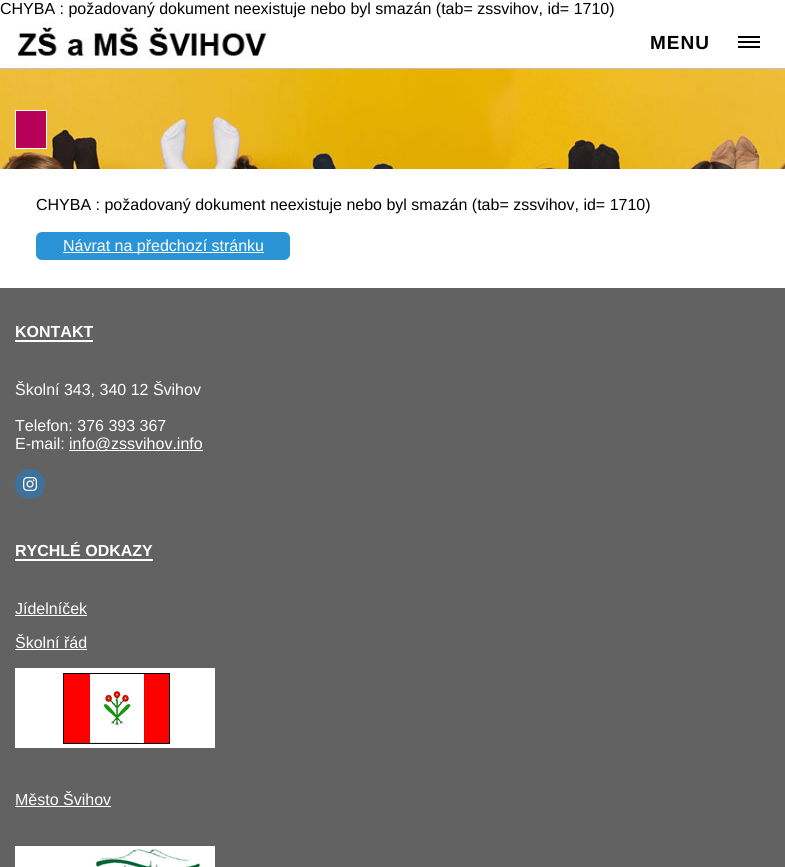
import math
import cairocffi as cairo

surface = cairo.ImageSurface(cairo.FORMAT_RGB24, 785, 867)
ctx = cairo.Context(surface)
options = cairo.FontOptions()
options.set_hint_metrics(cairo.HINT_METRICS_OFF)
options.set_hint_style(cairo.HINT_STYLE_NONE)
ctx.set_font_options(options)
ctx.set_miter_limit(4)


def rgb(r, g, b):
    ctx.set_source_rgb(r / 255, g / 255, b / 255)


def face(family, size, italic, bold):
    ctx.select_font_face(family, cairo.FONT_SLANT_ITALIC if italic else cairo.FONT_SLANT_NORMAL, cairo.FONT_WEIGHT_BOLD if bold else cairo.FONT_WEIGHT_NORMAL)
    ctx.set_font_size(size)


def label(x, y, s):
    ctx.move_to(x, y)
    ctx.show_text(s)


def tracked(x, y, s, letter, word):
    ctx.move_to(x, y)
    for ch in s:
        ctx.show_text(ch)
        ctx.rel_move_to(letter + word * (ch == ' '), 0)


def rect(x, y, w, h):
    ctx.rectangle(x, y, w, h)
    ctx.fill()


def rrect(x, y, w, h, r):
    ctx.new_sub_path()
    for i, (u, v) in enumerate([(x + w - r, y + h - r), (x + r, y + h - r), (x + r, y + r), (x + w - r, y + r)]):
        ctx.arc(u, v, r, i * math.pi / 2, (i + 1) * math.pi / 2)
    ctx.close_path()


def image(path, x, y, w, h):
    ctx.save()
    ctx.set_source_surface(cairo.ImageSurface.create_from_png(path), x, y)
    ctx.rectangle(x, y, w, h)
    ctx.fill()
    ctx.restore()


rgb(255, 255, 255)
ctx.paint()
face('Liberation Sans', 16, 0, 0)
rgb(0, 0, 0)
label(0, 14, 'CHYBA : požadovaný dokument neexistuje nebo byl smazán (tab= zssvihov, id= 1710)')
rgb(192, 192, 192)
rect(0, 68, 785, 1)
face('Liberation Sans', 19, 0, 1)
rgb(0, 0, 0)
tracked(650, 49, 'MENU', 1, 0)
rect(738, 36, 22, 2)
rect(738, 41, 22, 2)
rect(738, 46, 22, 2)
image('image0.png', 18, 22, 249, 39)
image('image1.png', 0, 69, 785, 100)
rgb(183, 0, 88)
ctx.rectangle(15.5, 110.5, 31, 38)
ctx.fill_preserve()
rgb(255, 255, 255)
ctx.set_line_width(1)
ctx.stroke()
face('Liberation Sans', 16, 0, 0)
rgb(0, 0, 0)
label(36, 210, 'CHYBA : požadovaný dokument neexistuje nebo byl smazán (tab= zssvihov, id= 1710)')
rgb(42, 148, 215)
rrect(36, 232, 254, 28, 6)
ctx.fill()
rgb(255, 255, 255)
rect(63, 252, 201, 1)
label(63, 251, 'Návrat na předchozí stránku')
rgb(98, 98, 98)
rect(0, 288, 785, 579)
face('Liberation Sans', 16, 0, 1)
rgb(255, 255, 255)
label(15, 337, 'KONTAKT')
rect(15, 340, 78, 2)
face('Liberation Sans', 16, 0, 0)
label(15, 395, 'Školní 343, 340 12 Švihov')
label(15, 431, 'Telefon: 376 393 367')
label(15, 449, 'E-mail:')
rect(69, 450, 134, 1)
label(69, 449, 'info@zssvihov.info')
rgb(63, 114, 155)
ctx.new_path()
ctx.arc(30, 484, 15, 0, 2 * math.pi)
ctx.fill()
image('image2.png', 23, 477, 15, 14)
face('Liberation Sans', 16, 0, 1)
rgb(255, 255, 255)
label(15, 556, 'RYCHLÉ ODKAZY')
rect(15, 559, 138, 2)
face('Liberation Sans', 16, 0, 0)
label(15, 614, 'Jídelníček')
rect(15, 615, 72, 1)
label(15, 648, 'Školní řád')
rect(15, 649, 72, 1)
image('image3.png', 15, 668, 200, 80)
label(15, 805, 'Město Švihov')
rect(15, 806, 96, 1)
image('image4.png', 15, 846, 200, 21)
surface.write_to_png('render.png')
